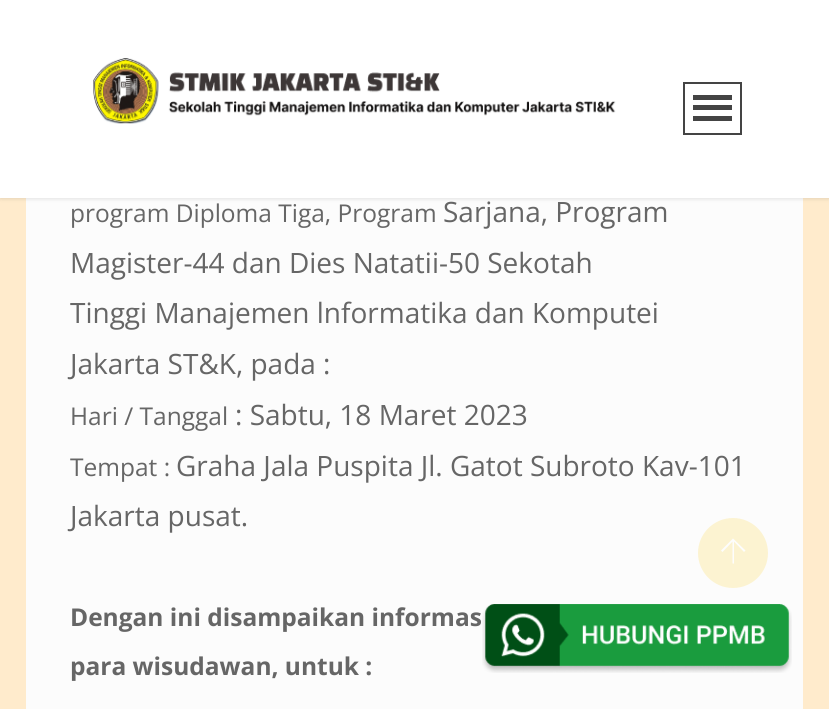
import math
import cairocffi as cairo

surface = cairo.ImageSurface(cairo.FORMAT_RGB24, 829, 709)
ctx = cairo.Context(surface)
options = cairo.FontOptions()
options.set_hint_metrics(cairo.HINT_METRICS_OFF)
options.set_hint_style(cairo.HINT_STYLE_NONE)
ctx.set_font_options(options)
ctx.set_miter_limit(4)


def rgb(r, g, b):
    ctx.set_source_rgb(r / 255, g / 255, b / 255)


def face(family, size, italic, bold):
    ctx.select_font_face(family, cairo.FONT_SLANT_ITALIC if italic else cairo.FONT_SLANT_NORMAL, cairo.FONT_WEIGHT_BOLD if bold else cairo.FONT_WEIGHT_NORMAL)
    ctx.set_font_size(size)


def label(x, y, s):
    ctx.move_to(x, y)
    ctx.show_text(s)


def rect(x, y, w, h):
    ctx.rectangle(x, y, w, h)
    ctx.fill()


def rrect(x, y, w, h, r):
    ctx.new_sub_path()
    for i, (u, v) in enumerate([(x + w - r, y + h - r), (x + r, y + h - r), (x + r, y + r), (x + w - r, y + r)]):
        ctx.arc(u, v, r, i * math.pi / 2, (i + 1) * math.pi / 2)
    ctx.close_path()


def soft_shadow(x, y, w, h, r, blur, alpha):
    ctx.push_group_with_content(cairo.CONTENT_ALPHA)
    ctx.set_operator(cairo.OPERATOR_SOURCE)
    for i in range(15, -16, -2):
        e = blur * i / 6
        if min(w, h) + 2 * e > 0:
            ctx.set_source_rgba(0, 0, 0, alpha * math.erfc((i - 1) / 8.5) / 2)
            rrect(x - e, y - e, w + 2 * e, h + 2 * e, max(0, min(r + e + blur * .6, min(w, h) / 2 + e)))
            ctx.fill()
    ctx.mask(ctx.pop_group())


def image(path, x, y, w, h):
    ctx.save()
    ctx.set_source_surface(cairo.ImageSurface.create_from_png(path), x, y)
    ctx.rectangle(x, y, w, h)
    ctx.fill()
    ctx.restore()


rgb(255, 235, 204)
ctx.paint()
rgb(252, 252, 252)
rect(26, 198, 777, 511)
rgb(0, 0, 0)
soft_shadow(0, 0, 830, 198, 0, 2.5, 0.15)
rgb(255, 255, 255)
rect(0, 0, 829, 198)
image('image0.png', 93, 58, 523, 66)
ctx.rectangle(684, 83, 57, 51)
rgb(68, 68, 68)
ctx.stroke()
rect(693, 95, 39, 5)
rect(693, 105, 39, 5)
rect(693, 116, 39, 5)
face('Open Sans', 24.5, 0, 0)
rgb(102, 102, 102)
label(70, 222, 'program Diploma Tiga, Program')
face('Open Sans', 28, 0, 0)
label(443, 222, 'Sarjana, Program')
label(70, 273, 'Magister-44 dan Dies Natatii-50 Sekotah')
label(70, 323, 'Tinggi Manajemen lnformatika dan Komputei')
label(70, 374, 'Jakarta ST&K, pada :')
face('Open Sans', 24.5, 0, 0)
label(70, 425, 'Hari / Tanggal')
face('Open Sans', 28, 0, 0)
label(235, 425, ': Sabtu, 18 Maret 2023')
face('Open Sans', 24.5, 0, 0)
label(70, 476, 'Tempat :')
face('Open Sans', 28, 0, 0)
label(176, 476, 'Graha Jala Puspita Jl. Gatot Subroto Kav-101')
label(70, 526, 'Jakarta pusat.')
face('Open Sans', 24.5, 0, 1)
label(70, 626, 'Dengan ini disampaikan informas')
label(70, 675, 'para wisudawan, untuk :')
rgb(252, 243, 209)
ctx.new_path()
ctx.arc(733, 553, 35, 0, 2 * math.pi)
ctx.fill()
rgb(253, 253, 253)
ctx.new_path()
ctx.move_to(744, 552)
ctx.line_to(734, 541.5)
ctx.line_to(734, 563.5)
ctx.line_to(732.5, 563.5)
ctx.line_to(732.5, 541.5)
ctx.line_to(722.5, 552)
ctx.line_to(721, 550.5)
ctx.line_to(733, 538.5)
ctx.line_to(745.5, 550.5)
ctx.close_path()
ctx.fill()
image('image1.png', 482, 604, 310, 69)
surface.write_to_png('render.png')
